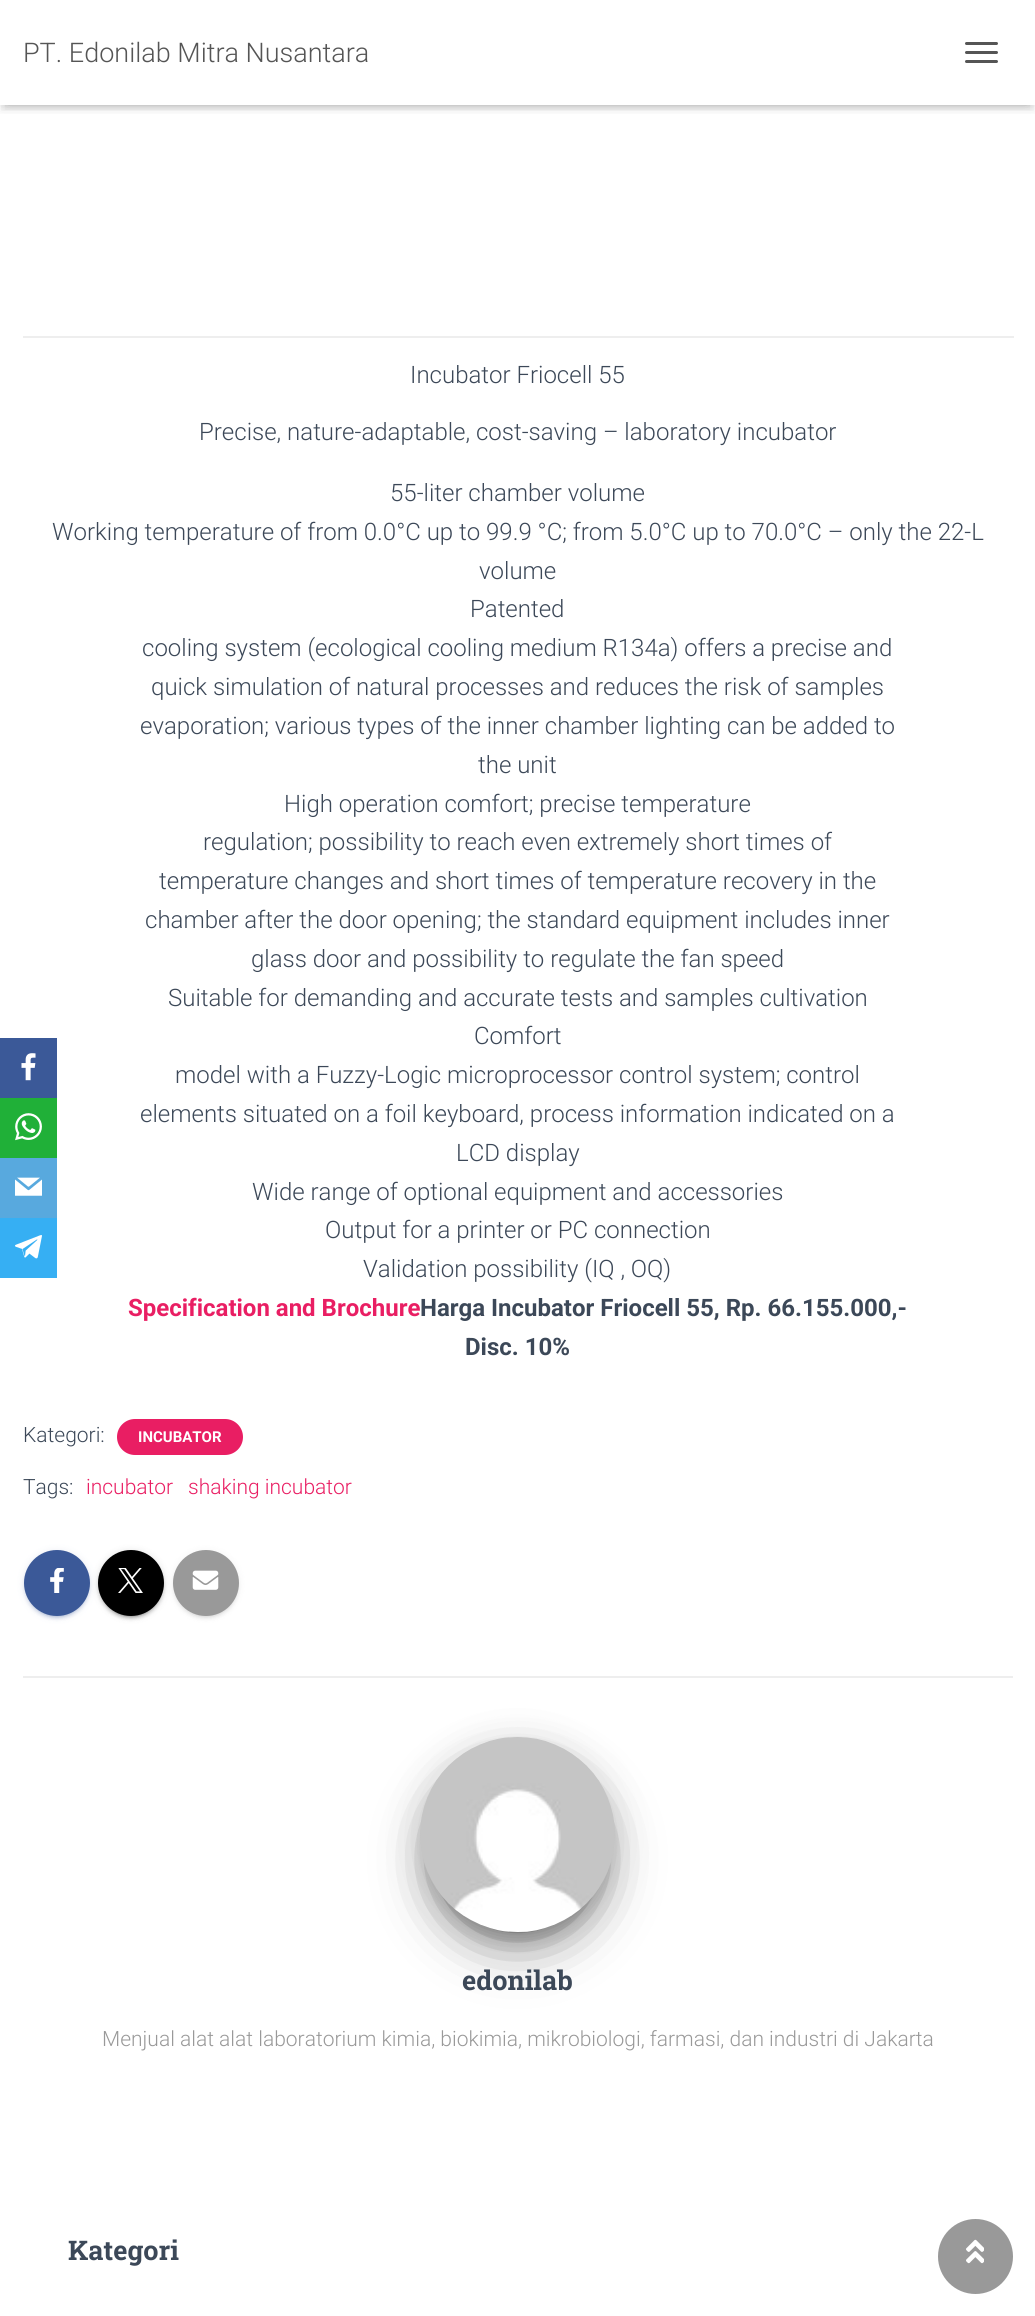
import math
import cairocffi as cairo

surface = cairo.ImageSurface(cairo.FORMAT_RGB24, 1035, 2316)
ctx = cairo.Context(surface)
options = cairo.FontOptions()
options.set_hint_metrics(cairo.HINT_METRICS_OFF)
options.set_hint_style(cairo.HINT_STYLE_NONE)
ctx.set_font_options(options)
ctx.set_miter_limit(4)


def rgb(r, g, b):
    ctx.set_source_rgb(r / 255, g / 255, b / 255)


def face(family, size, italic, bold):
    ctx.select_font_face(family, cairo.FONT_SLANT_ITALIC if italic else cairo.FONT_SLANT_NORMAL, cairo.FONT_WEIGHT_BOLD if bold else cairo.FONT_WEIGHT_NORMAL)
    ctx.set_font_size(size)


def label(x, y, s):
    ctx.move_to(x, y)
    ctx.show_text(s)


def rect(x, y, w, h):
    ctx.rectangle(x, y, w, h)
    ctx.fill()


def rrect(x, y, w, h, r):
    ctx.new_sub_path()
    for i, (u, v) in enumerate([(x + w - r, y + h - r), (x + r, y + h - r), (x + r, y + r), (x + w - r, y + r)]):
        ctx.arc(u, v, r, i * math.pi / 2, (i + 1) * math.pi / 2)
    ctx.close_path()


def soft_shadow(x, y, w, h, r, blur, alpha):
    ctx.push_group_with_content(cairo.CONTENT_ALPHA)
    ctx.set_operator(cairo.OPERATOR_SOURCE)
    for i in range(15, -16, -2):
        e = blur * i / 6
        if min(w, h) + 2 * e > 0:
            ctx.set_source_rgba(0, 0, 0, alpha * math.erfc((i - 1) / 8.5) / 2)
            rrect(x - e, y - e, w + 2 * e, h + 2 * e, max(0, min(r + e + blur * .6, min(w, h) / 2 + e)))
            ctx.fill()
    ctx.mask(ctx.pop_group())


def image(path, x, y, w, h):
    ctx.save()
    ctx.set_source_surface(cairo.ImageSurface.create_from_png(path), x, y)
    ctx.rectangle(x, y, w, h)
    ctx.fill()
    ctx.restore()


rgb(255, 255, 255)
ctx.paint()
ctx.save()
ctx.rectangle(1, 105, 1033, 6)
ctx.clip()
rgb(0, 0, 0)
soft_shadow(3, 9, 1029, 99, 0, 4, 0.1)
ctx.restore()
ctx.save()
ctx.rectangle(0, 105, 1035, 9)
ctx.clip()
rgb(0, 0, 0)
soft_shadow(0, 2, 1035, 105, 0, 7.5, 0.12)
ctx.restore()
ctx.save()
ctx.rectangle(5, 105, 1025, 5)
ctx.clip()
rgb(0, 0, 0)
soft_shadow(9, 11, 1017, 87, 0, 7.5, 0.42)
ctx.restore()
face('Roboto Light', 27, 0, 0)
rgb(85, 85, 85)
label(23, 62, 'PT. Edonilab Mitra Nusantara')
rrect(965, 42, 33, 3, 1.5)
ctx.fill()
rrect(965, 51, 33, 3, 1.5)
ctx.fill()
rrect(965, 60, 33, 3, 1.5)
ctx.fill()
rgb(238, 238, 238)
rect(23, 336, 991, 2)
face('Roboto Light', 24, 0, 0)
rgb(60, 72, 88)
label(410, 383, 'Incubator Friocell 55')
label(199, 440, 'Precise, nature-adaptable, cost-saving – laboratory incubator')
label(390, 501, '55-liter chamber volume')
label(52, 540, 'Working temperature of from 0.0°C up to 99.9 °C; from 5.0°C up to 70.0°C – only the 22-L')
label(479, 579, 'volume')
label(470, 617, 'Patented')
label(142, 656, 'cooling system (ecological cooling medium R134a) offers a precise and')
label(151, 695, 'quick simulation of natural processes and reduces the risk of samples')
label(140, 734, 'evaporation; various types of the inner chamber lighting can be added to')
label(478, 773, 'the unit')
label(284, 812, 'High operation comfort; precise temperature')
label(203, 850, 'regulation; possibility to reach even extremely short times of')
label(159, 889, 'temperature changes and short times of temperature recovery in the')
label(145, 928, 'chamber after the door opening; the standard equipment includes inner')
label(251, 967, 'glass door and possibility to regulate the fan speed')
label(168, 1006, 'Suitable for demanding and accurate tests and samples cultivation')
label(474, 1044, 'Comfort')
label(175, 1083, 'model with a Fuzzy-Logic microprocessor control system; control')
label(140, 1122, 'elements situated on a foil keyboard, process information indicated on a')
label(456, 1161, 'LCD display')
label(252, 1200, 'Wide range of optional equipment and accessories')
label(325, 1238, 'Output for a printer or PC connection')
label(363, 1277, 'Validation possibility (IQ , OQ)')
face('Roboto', 24, 0, 1)
rgb(233, 30, 99)
label(128, 1316, 'Specification and Brochure')
rgb(60, 72, 88)
label(420, 1316, 'Harga Incubator Friocell 55, Rp. 66.155.000,-')
label(465, 1355, 'Disc. 10%')
face('Roboto Light', 21, 0, 0)
label(23, 1442, 'Kategori:')
rgb(233, 30, 99)
rrect(117, 1419, 126, 36, 18)
ctx.fill()
face('Roboto', 15, 0, 1)
rgb(255, 255, 255)
label(138, 1442, 'INCUBATOR')
face('Roboto Light', 21, 0, 0)
rgb(60, 72, 88)
label(23, 1494, 'Tags:')
rgb(233, 30, 99)
label(86, 1494, 'incubator')
label(188, 1494, 'shaking incubator')
rgb(59, 89, 152)
soft_shadow(24, 1551, 66, 66, 33, 4, 0.12)
soft_shadow(27, 1557, 60, 60, 30, 1, 0.2)
soft_shadow(24, 1553, 66, 66, 33, 1.5, 0.14)
rgb(59, 89, 152)
ctx.arc(57, 1583, 33, 0, 2 * math.pi)
ctx.fill()
image('image0.png', 50, 1568, 14, 25)
rgb(0, 0, 0)
soft_shadow(98, 1551, 66, 66, 33, 4, 0.12)
soft_shadow(101, 1557, 60, 60, 30, 1, 0.2)
soft_shadow(98, 1553, 66, 66, 33, 1.5, 0.14)
rgb(0, 0, 0)
ctx.arc(131, 1583, 33, 0, 2 * math.pi)
ctx.fill()
image('image1.png', 118, 1568, 25, 25)
rgb(153, 153, 153)
soft_shadow(173, 1551, 66, 66, 33, 4, 0.12)
soft_shadow(176, 1557, 60, 60, 30, 1, 0.2)
soft_shadow(173, 1553, 66, 66, 33, 1.5, 0.14)
rgb(153, 153, 153)
ctx.arc(206, 1583, 33, 0, 2 * math.pi)
ctx.fill()
image('image2.png', 192, 1570, 27, 20)
rgb(238, 238, 238)
rect(23, 1676, 990, 2)
rgb(0, 0, 0)
soft_shadow(428, 1757, 180, 180, 90, 7.5, 0.2)
soft_shadow(420, 1743, 195, 195, 97.5, 19, 0.12)
soft_shadow(438, 1779, 159, 159, 79.5, 28.5, 0.56)
image('image3.png', 420, 1737, 195, 195)
face('Roboto Slab', 27, 0, 1)
rgb(60, 72, 88)
label(462, 1990, 'edonilab')
face('Roboto Light', 21, 0, 0)
rgb(153, 153, 153)
label(102, 2046, 'Menjual alat alat laboratorium kimia, biokimia, mikrobiologi, farmasi, dan industri di Jakarta')
face('Roboto Slab', 27, 0, 1)
rgb(60, 72, 88)
label(68, 2260, 'Kategori')
rgb(59, 89, 152)
rect(0, 1038, 57, 60)
image('image4.png', 21, 1053, 15, 28)
rgb(32, 176, 56)
rect(0, 1098, 57, 60)
image('image5.png', 15, 1113, 27, 28)
rgb(88, 169, 222)
rect(0, 1158, 57, 60)
image('image6.png', 15, 1177, 27, 19)
rgb(54, 175, 243)
rect(0, 1218, 57, 60)
image('image7.png', 15, 1235, 27, 24)
rgb(153, 153, 153)
ctx.arc(975.5, 2256.5, 37.5, 0, 2 * math.pi)
ctx.fill()
image('image8.png', 966, 2239, 18, 25)
surface.write_to_png('render.png')
